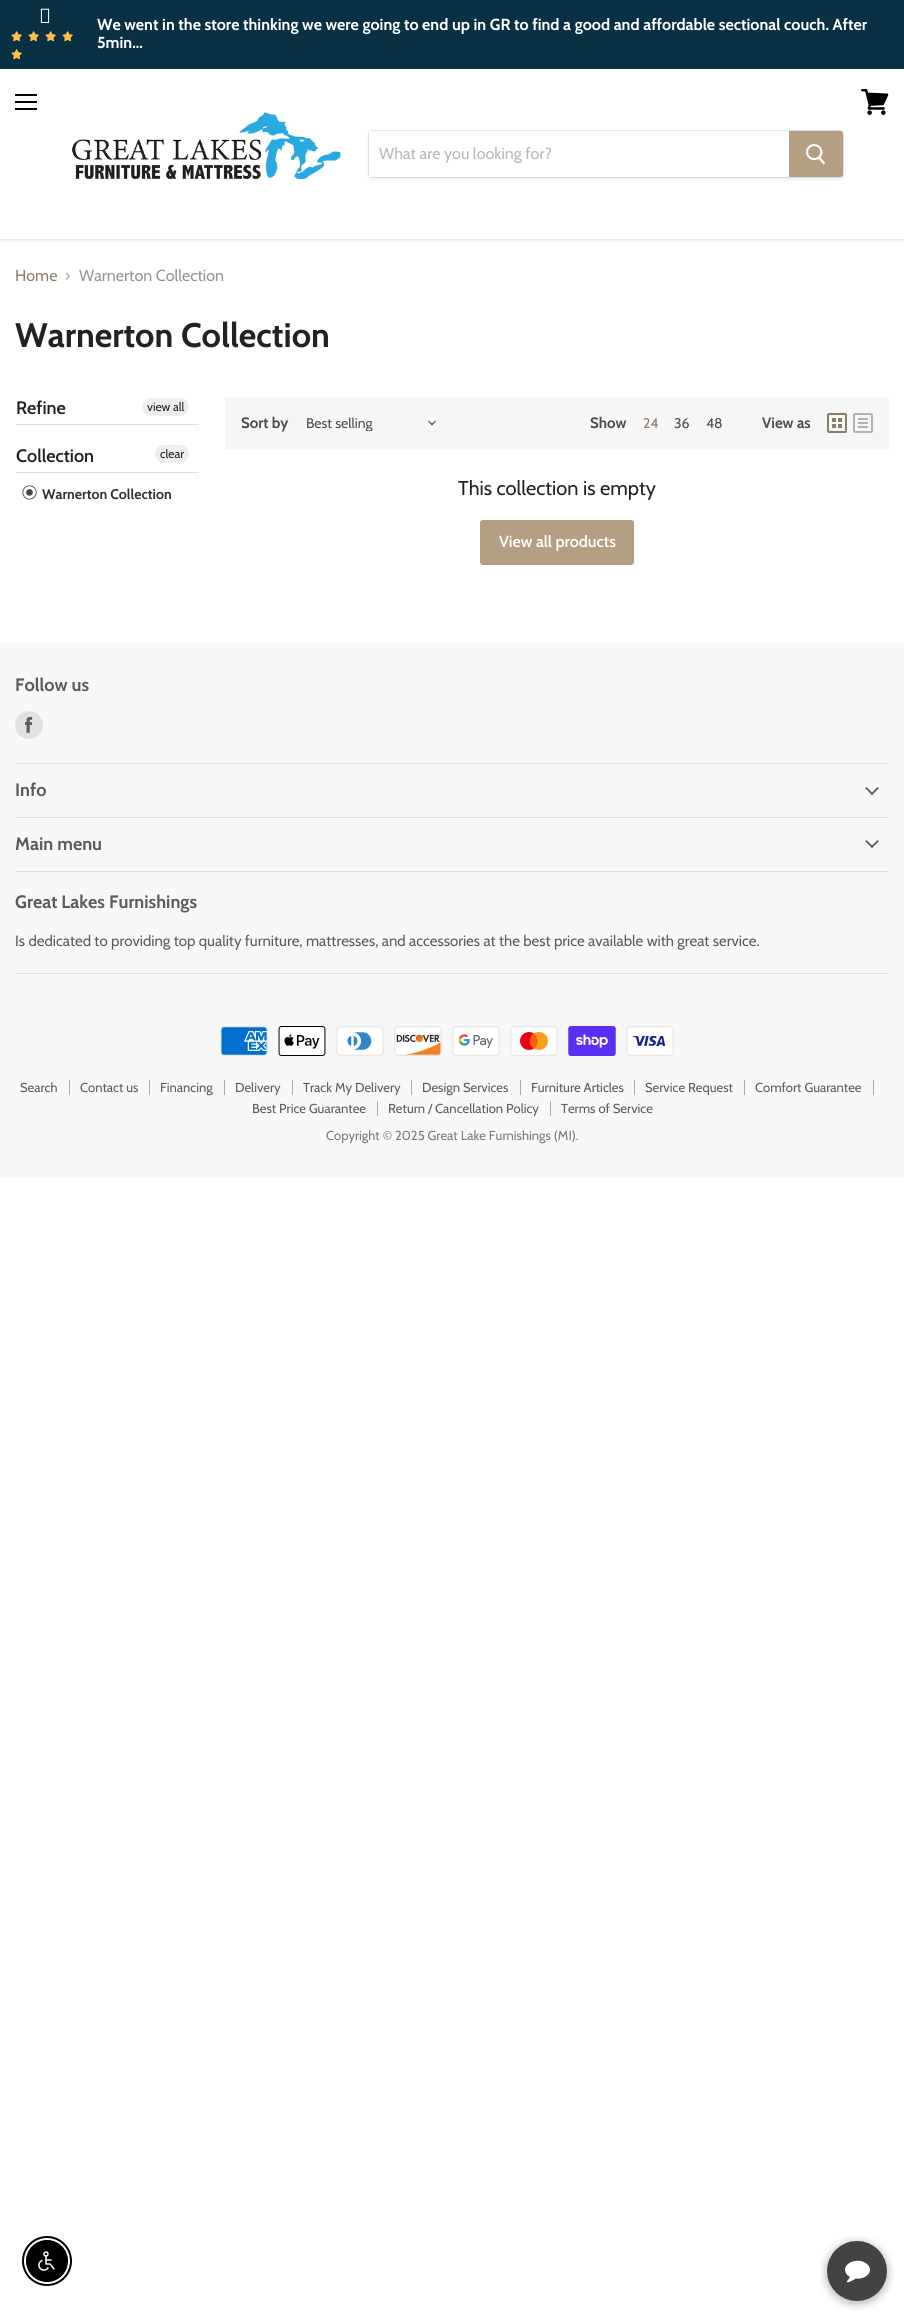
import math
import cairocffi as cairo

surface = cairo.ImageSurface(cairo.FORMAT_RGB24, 904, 2318)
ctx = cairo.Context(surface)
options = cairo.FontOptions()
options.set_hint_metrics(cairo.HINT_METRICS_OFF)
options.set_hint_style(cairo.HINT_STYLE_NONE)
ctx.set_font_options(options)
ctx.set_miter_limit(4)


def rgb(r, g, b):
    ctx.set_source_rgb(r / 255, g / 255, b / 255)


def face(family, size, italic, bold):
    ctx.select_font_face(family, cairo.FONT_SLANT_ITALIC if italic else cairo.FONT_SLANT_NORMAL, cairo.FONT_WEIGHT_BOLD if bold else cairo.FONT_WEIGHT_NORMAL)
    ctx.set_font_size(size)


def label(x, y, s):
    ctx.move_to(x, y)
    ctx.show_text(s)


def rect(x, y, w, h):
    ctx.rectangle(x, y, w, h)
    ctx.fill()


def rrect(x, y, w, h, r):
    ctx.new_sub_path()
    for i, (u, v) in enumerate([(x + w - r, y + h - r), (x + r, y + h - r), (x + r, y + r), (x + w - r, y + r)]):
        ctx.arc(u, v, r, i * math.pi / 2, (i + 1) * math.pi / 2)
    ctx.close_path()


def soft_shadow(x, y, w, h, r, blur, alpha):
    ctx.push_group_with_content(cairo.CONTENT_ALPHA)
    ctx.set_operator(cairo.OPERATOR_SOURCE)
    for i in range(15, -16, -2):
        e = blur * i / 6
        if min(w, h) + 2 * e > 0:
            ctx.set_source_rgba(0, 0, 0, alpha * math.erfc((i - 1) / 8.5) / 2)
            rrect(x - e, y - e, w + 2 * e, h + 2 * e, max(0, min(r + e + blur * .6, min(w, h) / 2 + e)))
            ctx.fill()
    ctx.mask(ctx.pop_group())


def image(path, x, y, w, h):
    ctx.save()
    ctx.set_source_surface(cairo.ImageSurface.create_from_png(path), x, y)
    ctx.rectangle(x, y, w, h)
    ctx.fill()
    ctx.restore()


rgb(255, 255, 255)
ctx.paint()
rgb(9, 48, 67)
rect(0, 0, 904, 69)
image('image0.png', 40, 8, 10, 15)
image('image1.png', 11, 31, 11, 11)
image('image1.png', 28, 31, 11, 11)
image('image1.png', 45, 31, 11, 11)
image('image1.png', 62, 31, 11, 11)
image('image1.png', 11, 49, 11, 11)
face('Cabin', 16, 0, 1)
rgb(255, 255, 255)
label(97, 30, 'We went in the store thinking we were going to end up in GR to find a good and affordable sectional couch. After')
label(97, 48, '5min...')
ctx.save()
ctx.set_fill_rule(cairo.FILL_RULE_EVEN_ODD)
ctx.new_path()
ctx.move_to(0, 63)
ctx.line_to(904, 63)
ctx.line_to(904, 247)
ctx.line_to(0, 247)
ctx.close_path()
ctx.move_to(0, 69)
ctx.line_to(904, 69)
ctx.line_to(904, 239)
ctx.line_to(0, 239)
ctx.close_path()
ctx.clip()
rgb(128, 128, 128)
soft_shadow(0, 70, 904, 170, 0, 2, 0.25)
ctx.restore()
rgb(0, 0, 0)
rect(15, 94, 22, 2)
rect(15, 101, 22, 2)
rect(15, 108, 22, 2)
image('image2.png', 861, 89, 28, 26)
image('image3.png', 72, 112, 270, 68)
rgb(128, 128, 128)
soft_shadow(368, 132, 476, 48, 4, 1.5, 0.11)
rrect(368.5, 130.5, 475, 47, 3.5)
ctx.set_source_rgba(0.502, 0.502, 0.502, 0.2)
ctx.set_line_width(1)
ctx.stroke()
rgb(255, 255, 255)
rect(369, 131, 420, 46)
face('Cabin', 16, 0, 0)
rgb(184, 184, 184)
label(379, 159, 'What are you looking for?')
rgb(181, 159, 130)
ctx.new_path()
ctx.move_to(789.5, 131.5)
ctx.line_to(840, 131.5)
ctx.curve_to(841.5, 131.5, 842.5, 132.5, 842.5, 134)
ctx.line_to(842.5, 174)
ctx.curve_to(842.5, 175.5, 841.5, 176.5, 840, 176.5)
ctx.line_to(789.5, 176.5)
ctx.close_path()
ctx.fill_preserve()
ctx.stroke()
image('image4.png', 806, 144, 20, 21)
rgb(139, 125, 107)
label(15, 281, 'Home')
image('image5.png', 66, 272, 4, 8)
rgb(148, 148, 148)
label(79, 281, 'Warnerton Collection')
face('Cabin', 34, 0, 1)
rgb(34, 34, 34)
label(15, 347, 'Warnerton Collection')
rgb(221, 221, 221)
rect(16, 424, 183, 1)
face('Cabin SemiBold', 18, 0, 0)
rgb(34, 34, 34)
label(16, 414, 'Refine')
rgb(238, 238, 238)
rrect(142, 398, 47, 18, 9)
ctx.fill()
face('Cabin', 12, 0, 0)
rgb(34, 34, 34)
label(147, 411, 'view all')
rgb(221, 221, 221)
rect(16, 472, 183, 1)
face('Cabin SemiBold', 18, 0, 0)
rgb(34, 34, 34)
label(16, 462, 'Collection')
rgb(238, 238, 238)
rrect(155, 445, 34, 18, 9)
ctx.fill()
face('Cabin', 12, 0, 0)
rgb(34, 34, 34)
label(160, 458, 'clear')
image('image6.png', 22, 485, 15, 15)
face('Cabin', 14, 0, 1)
rgb(51, 51, 51)
label(42, 499, 'Warnerton Collection')
rgb(246, 246, 246)
rect(225, 397, 664, 52)
face('Cabin', 15, 0, 1)
rgb(77, 77, 77)
label(241, 428, 'Sort by')
ctx.save()
ctx.rectangle(306, 415, 112, 16)
ctx.clip()
face('Cabin', 14, 0, 0)
label(306, 428, 'Best selling')
ctx.restore()
image('image7.png', 428, 420, 8, 6)
label(590, 428, 'Show')
face('Cabin', 14, 0, 0)
rgb(139, 125, 107)
label(643, 428, '24')
rgb(77, 77, 77)
label(674, 428, '36')
label(706, 428, '48')
face('Cabin', 15, 0, 1)
label(762, 428, 'View as')
image('image8.png', 827, 413, 20, 20)
image('image9.png', 853, 413, 20, 20)
face('Cabin', 20, 0, 0)
rgb(34, 34, 34)
label(458, 495, 'This collection is empty')
rgb(181, 159, 130)
rrect(480.5, 520.5, 153, 44, 2.5)
ctx.fill_preserve()
ctx.stroke()
face('Cabin SemiBold', 16, 0, 0)
rgb(255, 255, 255)
label(499, 547, 'View all products')
rgb(248, 248, 248)
rect(0, 643, 904, 534)
rgb(225, 225, 225)
rect(15, 763, 874, 1)
face('Cabin', 18, 0, 1)
rgb(92, 92, 92)
label(15, 691, 'Follow us')
rgb(225, 225, 225)
ctx.new_path()
ctx.arc(29, 725, 14, 0, 2 * math.pi)
ctx.fill()
image('image10.png', 25, 717, 8, 16)
rect(15, 817, 874, 1)
rgb(92, 92, 92)
label(15, 796, 'Info')
image('image11.png', 865, 787, 14, 8)
rgb(225, 225, 225)
rect(15, 871, 874, 1)
rgb(92, 92, 92)
label(15, 850, 'Main menu')
image('image11.png', 865, 840, 14, 8)
rgb(225, 225, 225)
rect(15, 973, 874, 1)
rgb(92, 92, 92)
label(15, 908, 'Great Lakes Furnishings')
face('Cabin', 15, 0, 0)
label(15, 946, 'Is dedicated to providing top quality furniture, mattresses, and accessories at the best price available with great service.')
image('image12.png', 220, 1026, 48, 30)
image('image13.png', 278, 1026, 48, 30)
image('image14.png', 336, 1026, 48, 30)
image('image15.png', 394, 1026, 48, 30)
image('image16.png', 452, 1026, 48, 30)
image('image17.png', 510, 1026, 48, 30)
image('image18.png', 568, 1026, 48, 30)
image('image19.png', 626, 1026, 48, 30)
rgb(170, 170, 170)
rect(69, 1080, 1, 15)
face('Cabin', 13, 0, 0)
rgb(92, 92, 92)
label(20, 1092, 'Search')
rgb(170, 170, 170)
rect(149, 1080, 1, 15)
rgb(92, 92, 92)
label(80, 1092, 'Contact us')
rgb(170, 170, 170)
rect(224, 1080, 1, 15)
rgb(92, 92, 92)
label(160, 1092, 'Financing')
rgb(170, 170, 170)
rect(292, 1080, 1, 15)
rgb(92, 92, 92)
label(235, 1092, 'Delivery')
rgb(170, 170, 170)
rect(411, 1080, 1, 15)
rgb(92, 92, 92)
label(303, 1092, 'Track My Delivery')
rgb(170, 170, 170)
rect(520, 1080, 1, 15)
rgb(92, 92, 92)
label(422, 1092, 'Design Services')
rgb(170, 170, 170)
rect(634, 1080, 1, 15)
rgb(92, 92, 92)
label(531, 1092, 'Furniture Articles')
rgb(170, 170, 170)
rect(744, 1080, 1, 15)
rgb(92, 92, 92)
label(645, 1092, 'Service Request')
rgb(170, 170, 170)
rect(873, 1080, 1, 15)
rgb(92, 92, 92)
label(755, 1092, 'Comfort Guarantee')
rgb(170, 170, 170)
rect(377, 1101, 1, 15)
rgb(92, 92, 92)
label(252, 1113, 'Best Price Guarantee')
rgb(170, 170, 170)
rect(550, 1101, 1, 15)
rgb(92, 92, 92)
label(388, 1113, 'Return / Cancellation Policy')
label(561, 1113, 'Terms of Service')
rgb(123, 123, 123)
label(326, 1140, 'Copyright © 2025 Great Lake Furnishings (MI).')
ctx.new_path()
ctx.arc(47, 2261, 24, 0, 2 * math.pi)
rgb(0, 0, 0)
ctx.set_line_width(2)
ctx.stroke()
ctx.arc(47, 2261, 20.5, 0, 2 * math.pi)
ctx.fill_preserve()
ctx.set_line_width(1)
ctx.stroke()
image('image20.png', 38, 2251, 17, 20)
image('image21.png', 820, 2236, 74, 74)
surface.write_to_png('render.png')
